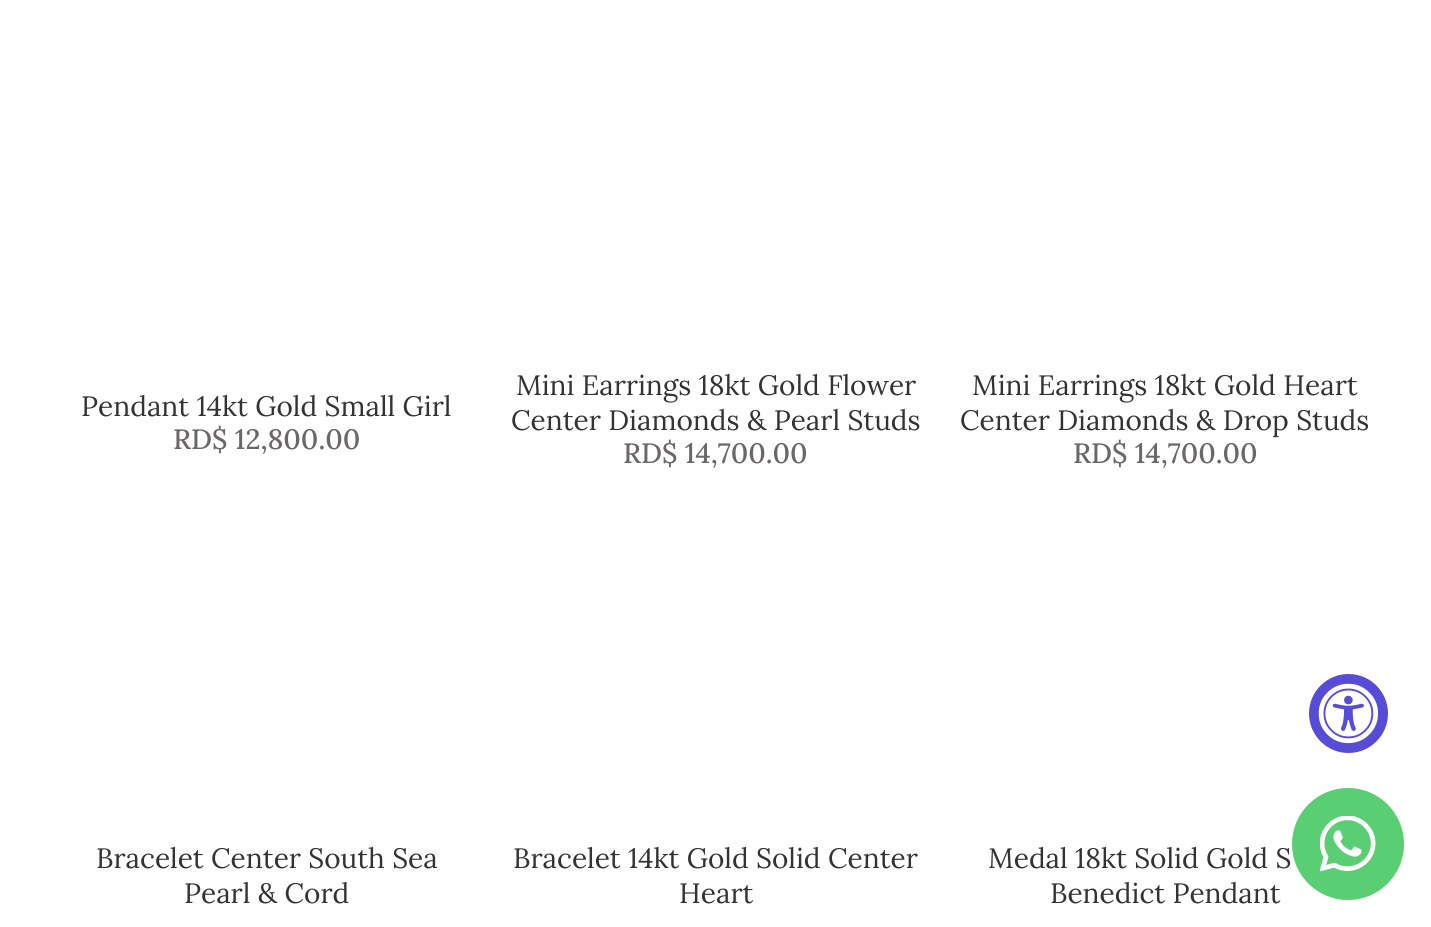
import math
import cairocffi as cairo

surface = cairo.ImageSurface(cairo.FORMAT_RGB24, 1431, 927)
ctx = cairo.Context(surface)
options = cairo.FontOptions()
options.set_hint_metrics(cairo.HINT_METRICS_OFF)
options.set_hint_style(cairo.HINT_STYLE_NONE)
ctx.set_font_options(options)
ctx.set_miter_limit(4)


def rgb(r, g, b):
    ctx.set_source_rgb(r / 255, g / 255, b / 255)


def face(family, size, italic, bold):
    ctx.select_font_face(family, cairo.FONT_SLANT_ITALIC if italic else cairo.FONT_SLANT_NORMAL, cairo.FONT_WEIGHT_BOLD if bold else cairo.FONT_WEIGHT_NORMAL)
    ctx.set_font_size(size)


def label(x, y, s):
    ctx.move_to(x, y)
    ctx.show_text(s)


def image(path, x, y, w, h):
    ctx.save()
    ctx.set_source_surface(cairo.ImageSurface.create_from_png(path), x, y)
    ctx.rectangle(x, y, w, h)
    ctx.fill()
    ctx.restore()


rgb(255, 255, 255)
ctx.paint()
face('Lora', 28, 0, 0)
rgb(51, 51, 51)
label(81, 416, 'Pendant 14kt Gold Small Girl')
face('Lora Medium', 28, 0, 0)
rgb(105, 104, 103)
label(173, 449, 'RD$ 12,800.00')
face('Lora', 28, 0, 0)
rgb(51, 51, 51)
label(516, 395, 'Mini Earrings 18kt Gold Flower')
label(511, 430, 'Center Diamonds & Pearl Studs')
face('Lora Medium', 28, 0, 0)
rgb(105, 104, 103)
label(623, 463, 'RD$ 14,700.00')
face('Lora', 28, 0, 0)
rgb(51, 51, 51)
label(972, 395, 'Mini Earrings 18kt Gold Heart')
label(960, 430, 'Center Diamonds & Drop Studs')
face('Lora Medium', 28, 0, 0)
rgb(105, 104, 103)
label(1073, 463, 'RD$ 14,700.00')
face('Lora', 28, 0, 0)
rgb(51, 51, 51)
label(96, 868, 'Bracelet Center South Sea')
label(184, 903, 'Pearl & Cord')
label(513, 868, 'Bracelet 14kt Gold Solid Center')
label(679, 903, 'Heart')
label(988, 868, 'Medal 18kt Solid Gold S')
label(1050, 903, 'Benedict Pendant')
rgb(87, 76, 213)
ctx.new_path()
ctx.arc(1348.5, 713.5, 39.5, 0, 2 * math.pi)
ctx.fill()
image('image0.png', 1318, 683, 61, 61)
rgb(89, 206, 114)
ctx.arc(1348, 844, 56, 0, 2 * math.pi)
ctx.fill()
image('image1.png', 1320, 816, 56, 56)
surface.write_to_png('render.png')
